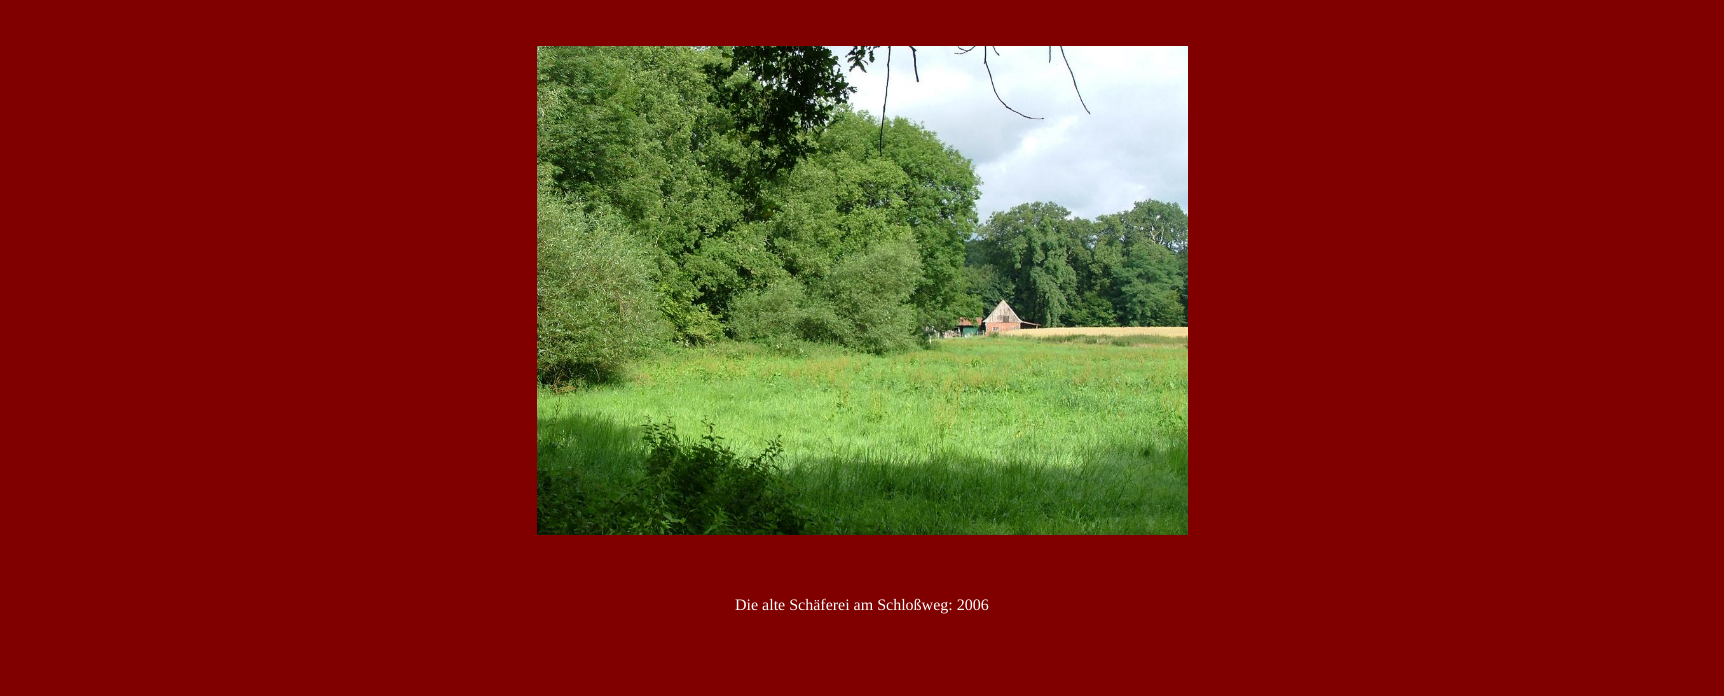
import math
import cairocffi as cairo

surface = cairo.ImageSurface(cairo.FORMAT_RGB24, 1724, 696)
ctx = cairo.Context(surface)
options = cairo.FontOptions()
options.set_hint_metrics(cairo.HINT_METRICS_OFF)
options.set_hint_style(cairo.HINT_STYLE_NONE)
ctx.set_font_options(options)
ctx.set_miter_limit(4)


def rgb(r, g, b):
    ctx.set_source_rgb(r / 255, g / 255, b / 255)


def face(family, size, italic, bold):
    ctx.select_font_face(family, cairo.FONT_SLANT_ITALIC if italic else cairo.FONT_SLANT_NORMAL, cairo.FONT_WEIGHT_BOLD if bold else cairo.FONT_WEIGHT_NORMAL)
    ctx.set_font_size(size)


def label(x, y, s):
    ctx.move_to(x, y)
    ctx.show_text(s)


def image(path, x, y, w, h):
    ctx.save()
    ctx.set_source_surface(cairo.ImageSurface.create_from_png(path), x, y)
    ctx.rectangle(x, y, w, h)
    ctx.fill()
    ctx.restore()


rgb(128, 0, 0)
ctx.paint()
image('image0.png', 537, 46, 651, 489)
face('Liberation Serif', 16, 0, 0)
rgb(255, 255, 255)
label(735, 610, 'Die alte Schäferei am Schloßweg: 2006')
surface.write_to_png('render.png')
